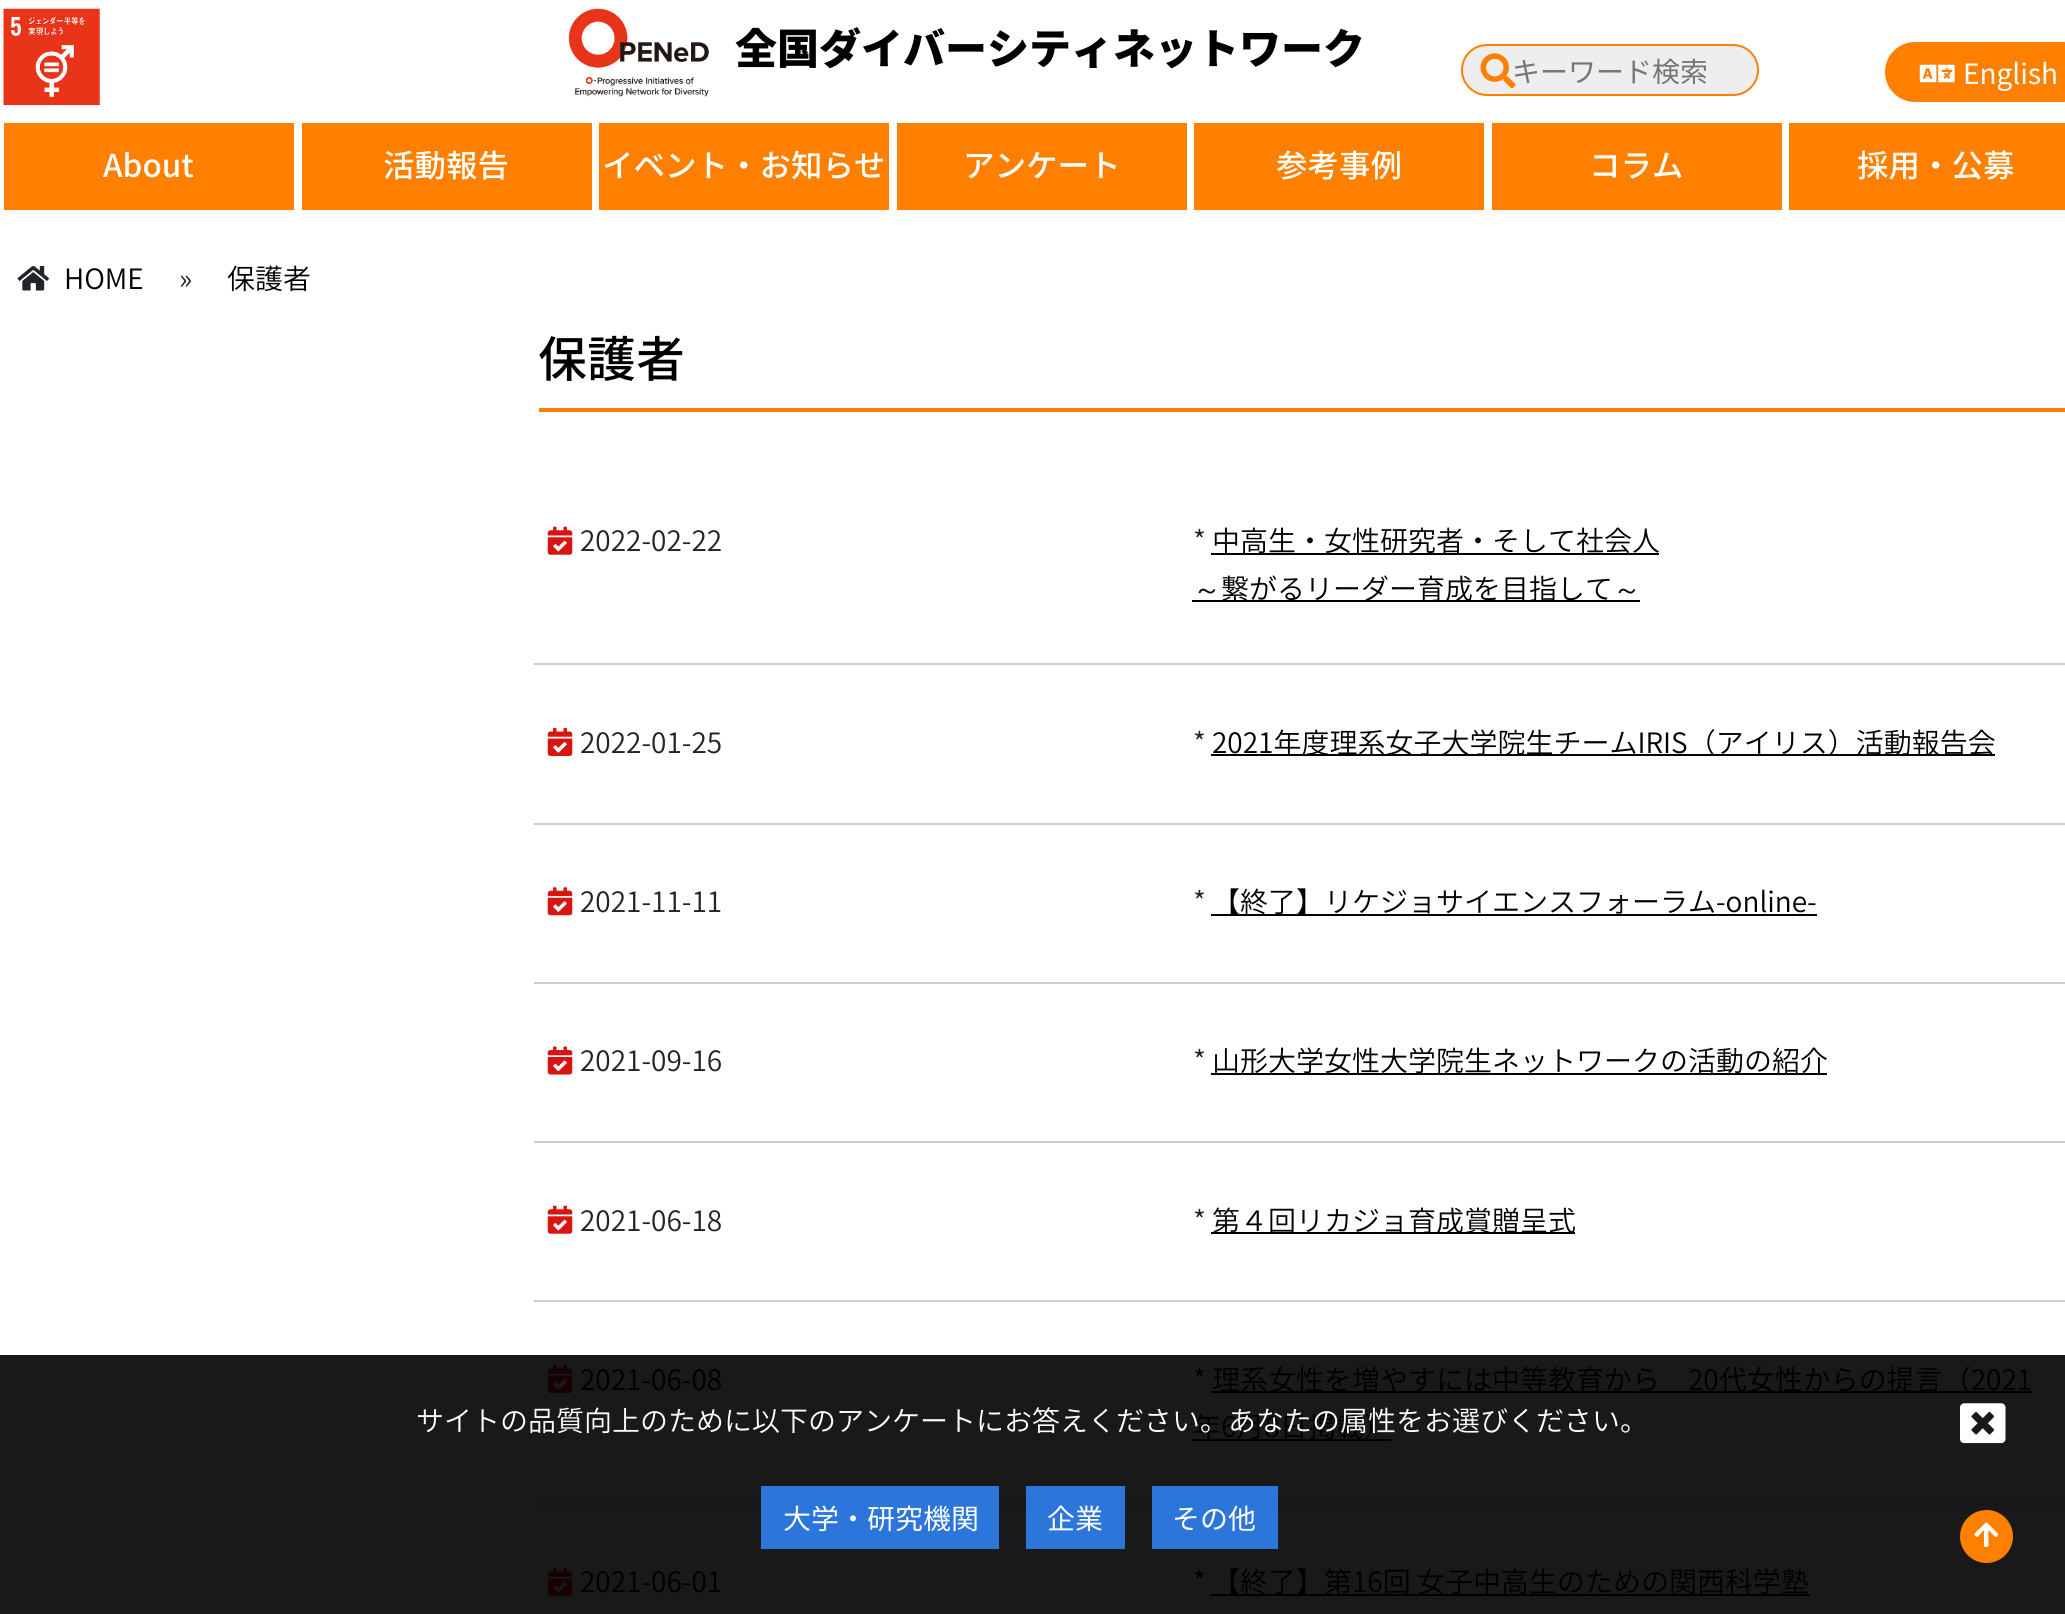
import math
import cairocffi as cairo

surface = cairo.ImageSurface(cairo.FORMAT_RGB24, 2065, 1614)
ctx = cairo.Context(surface)
options = cairo.FontOptions()
options.set_hint_metrics(cairo.HINT_METRICS_OFF)
options.set_hint_style(cairo.HINT_STYLE_NONE)
ctx.set_font_options(options)
ctx.set_miter_limit(4)


def rgb(r, g, b):
    ctx.set_source_rgb(r / 255, g / 255, b / 255)


def face(family, size, italic, bold):
    ctx.select_font_face(family, cairo.FONT_SLANT_ITALIC if italic else cairo.FONT_SLANT_NORMAL, cairo.FONT_WEIGHT_BOLD if bold else cairo.FONT_WEIGHT_NORMAL)
    ctx.set_font_size(size)


def label(x, y, s):
    ctx.move_to(x, y)
    ctx.show_text(s)


def rect(x, y, w, h):
    ctx.rectangle(x, y, w, h)
    ctx.fill()


def rrect(x, y, w, h, r):
    ctx.new_sub_path()
    for i, (u, v) in enumerate([(x + w - r, y + h - r), (x + r, y + h - r), (x + r, y + r), (x + w - r, y + r)]):
        ctx.arc(u, v, r, i * math.pi / 2, (i + 1) * math.pi / 2)
    ctx.close_path()


def image(path, x, y, w, h):
    ctx.save()
    ctx.set_source_surface(cairo.ImageSurface.create_from_png(path), x, y)
    ctx.rectangle(x, y, w, h)
    ctx.fill()
    ctx.restore()


rgb(255, 255, 255)
ctx.paint()
rgb(25, 25, 25)
rect(0, 1355, 2065, 259)
image('image0.png', 3, 8, 97, 97)
image('image1.png', 568, 8, 141, 89)
face('Noto Sans JP Black', 42, 0, 0)
rgb(0, 0, 0)
label(735, 64, '全国ダイバーシティネットワーク')
rgb(238, 238, 238)
rrect(1462, 45, 296, 50, 25)
ctx.fill_preserve()
rgb(255, 128, 0)
ctx.stroke()
face('Noto Sans JP', 28, 0, 0)
rgb(117, 117, 117)
label(1512, 82, 'キーワード検索')
image('image2.png', 1480, 53, 36, 36)
rgb(255, 128, 0)
rrect(1885, 42, 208, 60, 30)
ctx.fill()
image('image3.png', 1919, 64, 36, 19)
rgb(255, 255, 255)
label(1963, 84, 'English')
rgb(255, 128, 0)
rect(4, 123, 290, 87)
face('Noto Sans JP Medium', 31.5, 0, 0)
rgb(255, 255, 255)
label(103, 177, 'About')
rgb(255, 128, 0)
rect(302, 123, 290, 87)
rgb(255, 255, 255)
label(383, 177, '活動報告')
rgb(255, 128, 0)
rect(599, 123, 290, 87)
rgb(255, 255, 255)
label(602, 177, 'イベント・お知らせ')
rgb(255, 128, 0)
rect(897, 123, 290, 87)
rgb(255, 255, 255)
label(963, 177, 'アンケート')
rgb(255, 128, 0)
rect(1194, 123, 290, 87)
rgb(255, 255, 255)
label(1276, 177, '参考事例')
rgb(255, 128, 0)
rect(1492, 123, 290, 87)
rgb(255, 255, 255)
label(1589, 177, 'コラム')
rgb(255, 128, 0)
rect(1789, 123, 276, 87)
rgb(255, 255, 255)
label(1857, 177, '採用・公募')
image('image4.png', 17, 266, 32, 25)
face('Noto Sans JP Light', 28, 0, 0)
rgb(0, 0, 0)
label(64, 289, 'HOME')
rgb(33, 37, 41)
label(179, 289, '»')
rgb(0, 0, 0)
label(227, 289, '保護者')
rgb(255, 128, 0)
rect(539, 408, 1526, 4)
face('Noto Sans JP Medium', 49, 0, 0)
rgb(0, 0, 0)
label(538, 377, '保護者')
rgb(204, 204, 204)
rect(534, 663, 1531, 2)
image('image5.png', 547, 526, 26, 29)
face('Noto Sans JP Light', 28, 0, 0)
rgb(33, 37, 41)
label(580, 551, '2022-02-22')
label(1193, 551, '*')
rgb(0, 0, 0)
rect(1211, 553, 448, 2)
label(1212, 551, '中高生・女性研究者・そして社会人')
face('WenQuanYi Zen Hei Medium', 28, 0, 0)
label(1193, 599, '～')
rect(1192, 600, 448, 2)
face('Noto Sans JP Light', 28, 0, 0)
label(1221, 599, '繋がるリーダー育成を目指して')
face('WenQuanYi Zen Hei Medium', 28, 0, 0)
label(1613, 599, '～')
rgb(204, 204, 204)
rect(534, 823, 1531, 2)
image('image6.png', 547, 728, 26, 28)
face('Noto Sans JP Light', 28, 0, 0)
rgb(33, 37, 41)
label(580, 753, '2022-01-25')
label(1193, 753, '*')
rgb(0, 0, 0)
rect(1211, 754, 784, 2)
label(1212, 753, '2021年度理系女子大学院生チームIRIS（アイリス）活動報告会')
rgb(204, 204, 204)
rect(534, 982, 1531, 2)
image('image7.png', 547, 887, 26, 29)
rgb(33, 37, 41)
label(580, 912, '2021-11-11')
label(1193, 912, '*')
rgb(0, 0, 0)
rect(1211, 914, 606, 2)
label(1212, 912, '【終了】リケジョサイエンスフォーラム-online-')
rgb(204, 204, 204)
rect(534, 1141, 1531, 2)
image('image8.png', 547, 1046, 26, 29)
rgb(33, 37, 41)
label(580, 1071, '2021-09-16')
label(1193, 1071, '*')
rgb(0, 0, 0)
rect(1211, 1073, 616, 2)
label(1212, 1071, '山形大学女性大学院生ネットワークの活動の紹介')
rgb(204, 204, 204)
rect(534, 1300, 1531, 2)
image('image5.png', 547, 1205, 26, 29)
rgb(33, 37, 41)
label(580, 1231, '2021-06-18')
label(1193, 1231, '*')
rgb(0, 0, 0)
rect(1211, 1232, 364, 2)
label(1212, 1231, '第４回リカジョ育成賞贈呈式')
rgb(20, 20, 20)
rect(534, 1503, 1531, 2)
image('image9.png', 547, 1365, 26, 28)
rgb(0, 0, 0)
label(580, 1390, '2021-06-08')
label(1193, 1390, '*')
rect(1211, 1391, 821, 2)
label(1212, 1390, '理系女性を増やすには中等教育から　20代女性からの提言（2021')
rect(1192, 1439, 199, 2)
label(1193, 1437, '年6月8日掲載）')
image('image9.png', 547, 1568, 26, 28)
label(580, 1592, '2021-06-01')
label(1193, 1592, '*')
rect(1211, 1594, 599, 2)
label(1212, 1592, '【終了】第16回 女子中高生のための関西科学塾')
rgb(255, 255, 255)
label(416, 1431, 'サイトの品質向上のために以下のアンケートにお答えください。あなたの属性をお選びください。')
image('image10.png', 1960, 1403, 46, 41)
rgb(44, 117, 219)
rect(761, 1486, 238, 63)
face('Noto Sans JP', 28, 0, 0)
rgb(255, 255, 255)
label(783, 1529, '大学・研究機関')
rgb(44, 117, 219)
rect(1026, 1486, 99, 63)
rgb(255, 255, 255)
label(1047, 1529, '企業')
rgb(44, 117, 219)
rect(1152, 1486, 126, 63)
rgb(255, 255, 255)
label(1172, 1529, 'その他')
rgb(255, 128, 0)
ctx.new_path()
ctx.arc(1986.5, 1536.5, 26.5, 0, 2 * math.pi)
ctx.fill()
image('image11.png', 1974, 1522, 25, 25)
surface.write_to_png('render.png')
